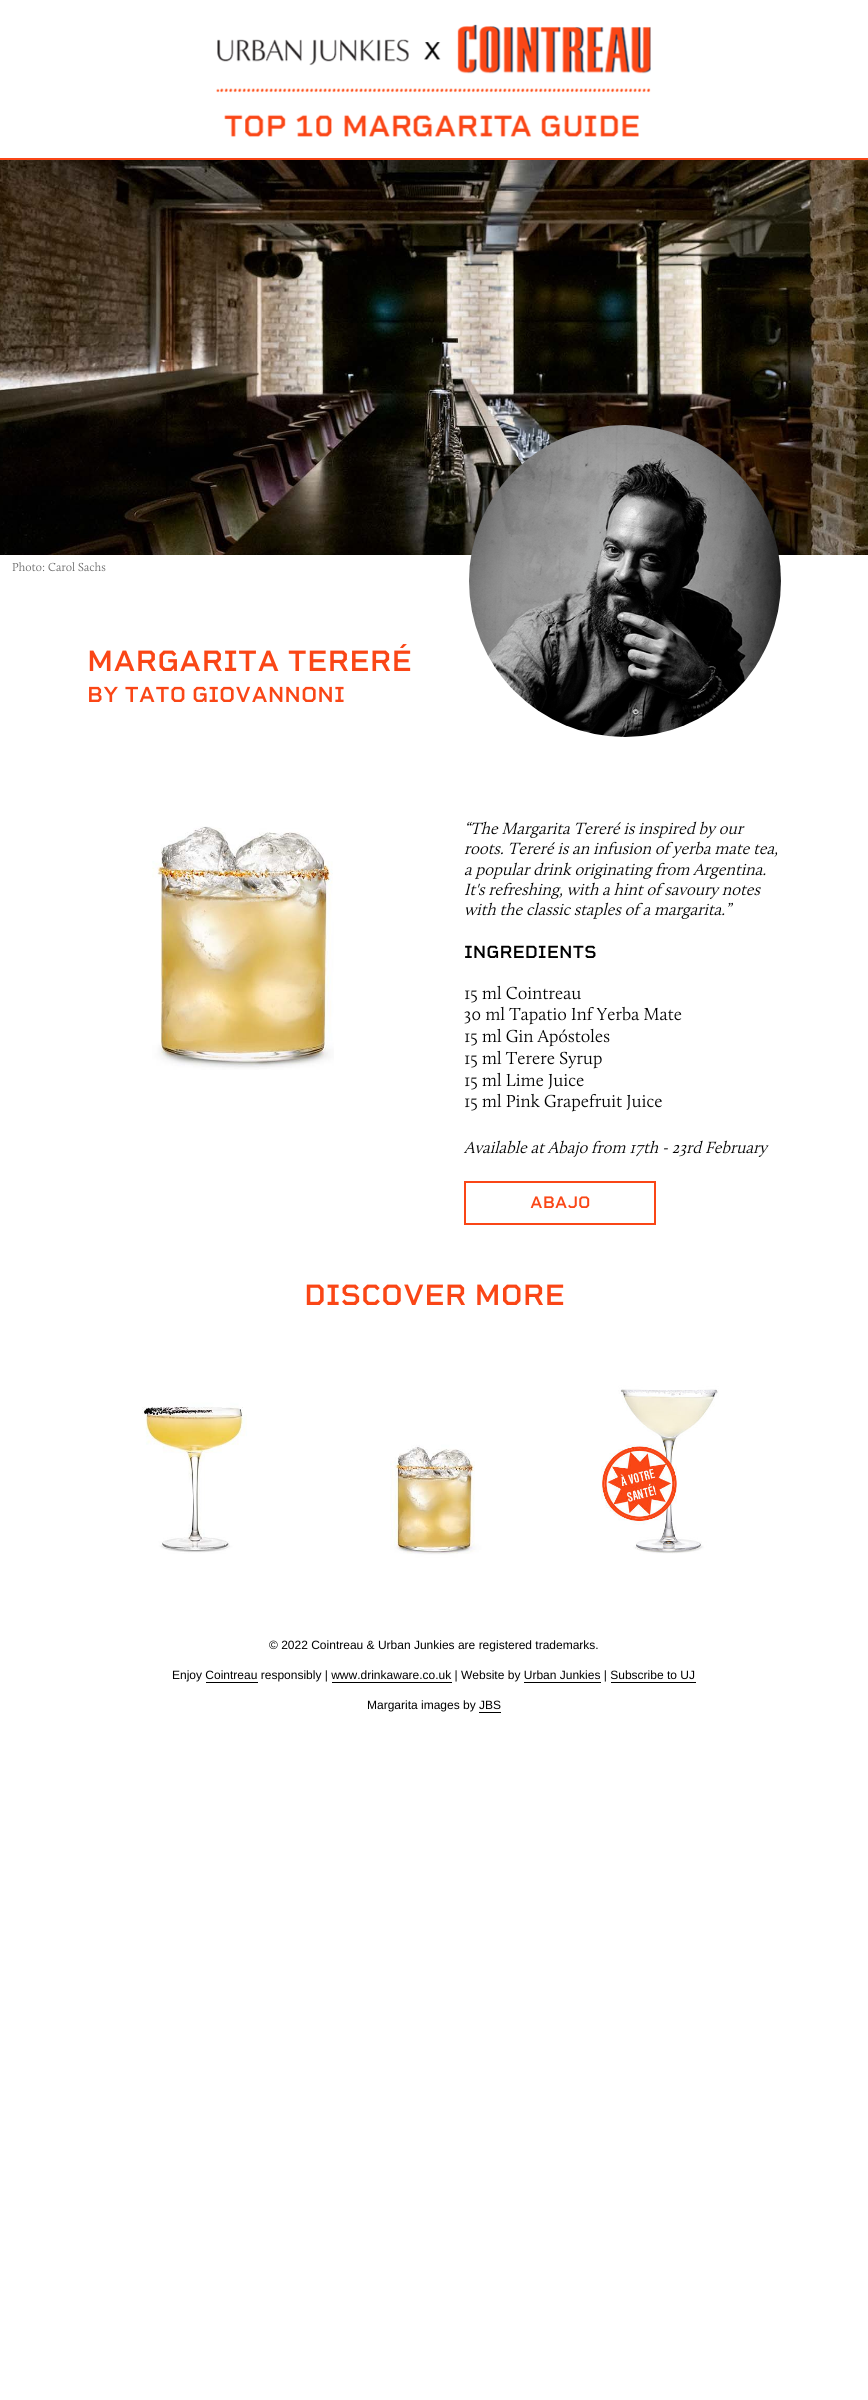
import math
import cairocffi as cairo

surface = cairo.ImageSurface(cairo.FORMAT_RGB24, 868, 2400)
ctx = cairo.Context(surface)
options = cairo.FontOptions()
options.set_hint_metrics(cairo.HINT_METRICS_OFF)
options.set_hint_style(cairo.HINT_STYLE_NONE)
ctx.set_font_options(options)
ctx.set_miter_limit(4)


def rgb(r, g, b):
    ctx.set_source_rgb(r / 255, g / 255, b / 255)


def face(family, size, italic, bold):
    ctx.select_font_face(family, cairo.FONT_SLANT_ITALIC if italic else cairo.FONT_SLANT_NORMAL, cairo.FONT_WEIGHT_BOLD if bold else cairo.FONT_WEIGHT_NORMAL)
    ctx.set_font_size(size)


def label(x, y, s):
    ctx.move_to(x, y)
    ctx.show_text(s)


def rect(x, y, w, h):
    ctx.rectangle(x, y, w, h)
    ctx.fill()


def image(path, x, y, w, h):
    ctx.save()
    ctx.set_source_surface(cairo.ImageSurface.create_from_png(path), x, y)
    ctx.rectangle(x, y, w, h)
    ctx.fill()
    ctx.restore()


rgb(255, 255, 255)
ctx.paint()
image('image0.png', 216, 24, 435, 113)
image('image1.png', 0, 160, 868, 395)
rgb(250, 70, 22)
rect(0, 158, 868, 2)
image('image2.png', 12, 562, 94, 10)
face('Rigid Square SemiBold', 30, 0, 0)
label(87, 671, 'MARGARITA TERERÉ')
face('Rigid Square SemiBold', 22.25, 0, 0)
label(87, 702, 'BY TATO GIOVANNONI')
image('image3.png', 469, 425, 312, 312)
image('image4.png', 152, 826, 182, 244)
image('image5.png', 467, 821, 278, 18)
image('image6.png', 464, 841, 314, 17)
image('image7.png', 464, 862, 302, 18)
image('image8.png', 464, 882, 297, 17)
image('image9.png', 465, 902, 268, 18)
face('Rigid Square SemiBold', 18, 0, 0)
rgb(0, 0, 0)
label(464, 958, 'INGREDIENTS')
image('image10.png', 465, 985, 116, 18)
image('image11.png', 464, 1006, 218, 19)
image('image12.png', 465, 1028, 145, 19)
image('image13.png', 465, 1050, 137, 19)
image('image14.png', 465, 1072, 119, 18)
image('image15.png', 465, 1093, 197, 19)
image('image16.png', 463, 1140, 306, 17)
ctx.rectangle(465, 1182, 190, 42)
rgb(250, 70, 22)
ctx.stroke()
face('Rigid Square SemiBold', 17, 0, 0)
label(530, 1208, 'ABAJO')
face('Rigid Square SemiBold', 30, 0, 0)
label(304, 1305, 'DISCOVER MORE')
image('image17.png', 87, 1352, 222, 222)
image('image18.png', 323, 1352, 222, 222)
image('image19.png', 559, 1352, 222, 222)
face('Liberation Sans', 12, 0, 0)
rgb(0, 0, 0)
label(269, 1649, '© 2022 Cointreau & Urban Junkies are registered trademarks.')
label(172, 1679, 'Enjoy Cointreau responsibly | www.drinkaware.co.uk | Website by Urban Junkies | Subscribe to UJ')
rect(206, 1682, 52, 1)
rect(332, 1682, 120, 1)
rect(524, 1682, 77, 1)
rect(611, 1682, 85, 1)
label(367, 1709, 'Margarita images by JBS')
rect(479, 1712, 22, 1)
surface.write_to_png('render.png')
